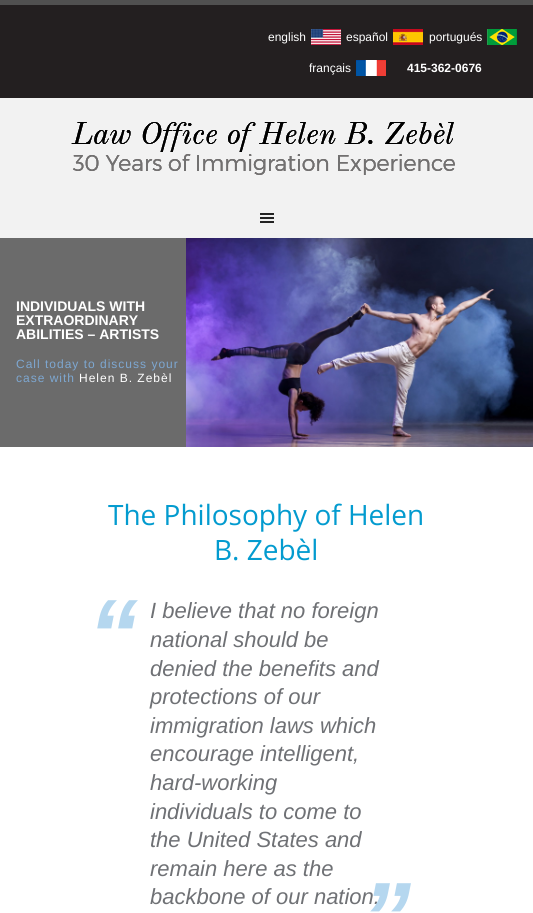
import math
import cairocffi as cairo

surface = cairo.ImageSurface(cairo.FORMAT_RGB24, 533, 913)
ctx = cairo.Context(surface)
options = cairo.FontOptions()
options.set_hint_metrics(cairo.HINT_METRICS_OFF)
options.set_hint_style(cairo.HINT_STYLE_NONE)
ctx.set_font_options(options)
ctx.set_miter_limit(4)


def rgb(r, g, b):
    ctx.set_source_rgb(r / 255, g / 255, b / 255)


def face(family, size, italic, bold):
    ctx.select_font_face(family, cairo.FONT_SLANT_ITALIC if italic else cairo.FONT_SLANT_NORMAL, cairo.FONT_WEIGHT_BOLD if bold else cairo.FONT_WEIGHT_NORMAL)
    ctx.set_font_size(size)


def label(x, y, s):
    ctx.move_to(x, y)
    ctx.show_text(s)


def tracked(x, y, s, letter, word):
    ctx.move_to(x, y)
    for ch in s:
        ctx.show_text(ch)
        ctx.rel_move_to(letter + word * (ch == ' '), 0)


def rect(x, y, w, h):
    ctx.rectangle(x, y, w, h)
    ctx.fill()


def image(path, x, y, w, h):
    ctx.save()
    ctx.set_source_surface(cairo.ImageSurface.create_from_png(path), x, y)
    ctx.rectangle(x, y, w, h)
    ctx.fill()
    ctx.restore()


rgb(242, 242, 242)
ctx.paint()
rgb(35, 31, 32)
rect(0, 5, 533, 93)
rgb(80, 80, 80)
rect(0, 0, 533, 5)
image('image0.png', 311, 29, 30, 16)
face('Liberation Sans', 12, 0, 0)
rgb(255, 255, 255)
label(268, 41, 'english')
image('image1.png', 393, 29, 30, 16)
label(346, 41, 'español')
image('image2.png', 487, 29, 30, 16)
label(429, 41, 'portugués')
image('image3.png', 356, 60, 30, 16)
label(309, 72, 'français')
face('Liberation Sans', 12, 0, 1)
label(407, 72, '415-362-0676')
image('image4.png', 71, 122, 384, 53)
image('image5.png', 71, 122, 384, 53)
image('image6.png', 260, 213, 14, 10)
rect(0, 447, 533, 466)
rgb(107, 107, 107)
rect(0, 238, 186, 209)
image('image7.png', 186, 238, 347, 209)
face('Liberation Sans', 14, 0, 1)
rgb(255, 255, 255)
label(16, 311, 'INDIVIDUALS WITH')
label(16, 325, 'EXTRAORDINARY')
label(16, 339, 'ABILITIES – ARTISTS')
face('Liberation Sans', 12, 0, 0)
rgb(125, 167, 209)
tracked(16, 368, 'Call today to discuss your', 1, 0)
tracked(16, 382, 'case with', 1, 0)
rgb(255, 255, 255)
tracked(79, 382, 'Helen B. Zebèl', 1, 0)
face('Open Sans', 28, 0, 0)
rgb(3, 155, 207)
label(108, 525, 'The Philosophy of Helen')
label(214, 560, 'B. Zebèl')
face('Liberation Sans', 100, 1, 1)
rgb(181, 215, 239)
label(88, 669, '“')
face('Liberation Sans', 22, 1, 0)
rgb(111, 113, 117)
label(150, 618, 'I believe that no foreign')
label(150, 647, 'national should be')
label(150, 676, 'denied the benefits and')
label(150, 704, 'protections of our')
label(150, 733, 'immigration laws which')
label(150, 761, 'encourage intelligent,')
label(150, 790, 'hard-working')
label(150, 819, 'individuals to come to')
label(150, 847, 'the United States and')
label(150, 876, 'remain here as the')
label(150, 904, 'backbone of our nation.')
face('Liberation Sans', 100, 1, 1)
rgb(181, 215, 239)
label(361, 952, '”')
surface.write_to_png('render.png')
